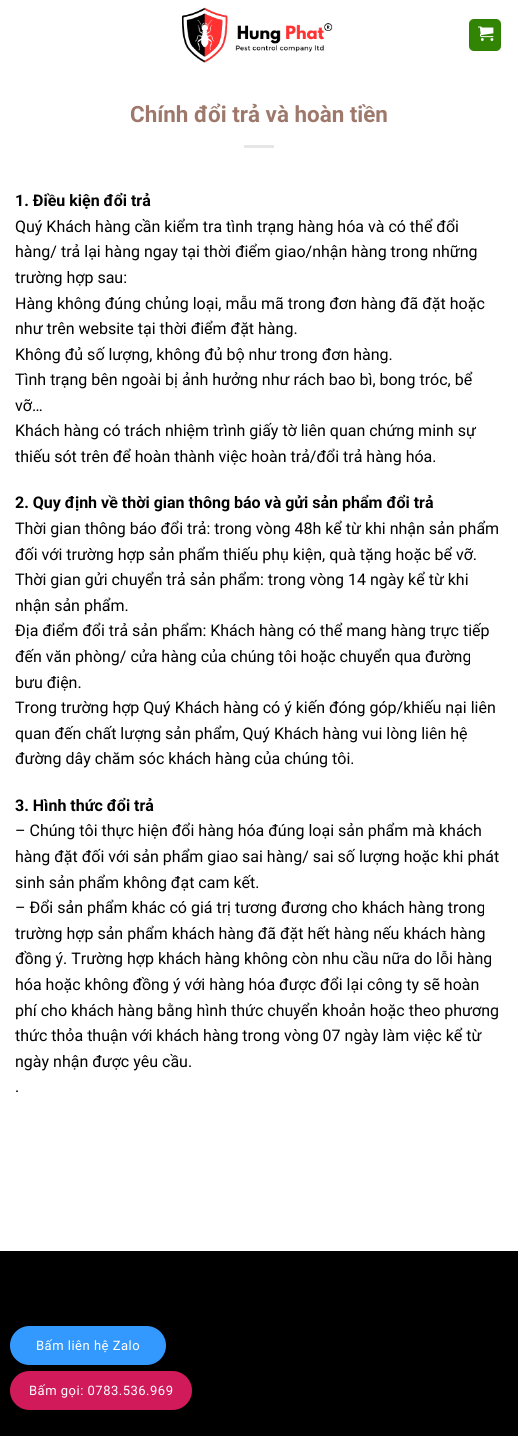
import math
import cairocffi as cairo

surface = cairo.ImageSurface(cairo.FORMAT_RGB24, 518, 1436)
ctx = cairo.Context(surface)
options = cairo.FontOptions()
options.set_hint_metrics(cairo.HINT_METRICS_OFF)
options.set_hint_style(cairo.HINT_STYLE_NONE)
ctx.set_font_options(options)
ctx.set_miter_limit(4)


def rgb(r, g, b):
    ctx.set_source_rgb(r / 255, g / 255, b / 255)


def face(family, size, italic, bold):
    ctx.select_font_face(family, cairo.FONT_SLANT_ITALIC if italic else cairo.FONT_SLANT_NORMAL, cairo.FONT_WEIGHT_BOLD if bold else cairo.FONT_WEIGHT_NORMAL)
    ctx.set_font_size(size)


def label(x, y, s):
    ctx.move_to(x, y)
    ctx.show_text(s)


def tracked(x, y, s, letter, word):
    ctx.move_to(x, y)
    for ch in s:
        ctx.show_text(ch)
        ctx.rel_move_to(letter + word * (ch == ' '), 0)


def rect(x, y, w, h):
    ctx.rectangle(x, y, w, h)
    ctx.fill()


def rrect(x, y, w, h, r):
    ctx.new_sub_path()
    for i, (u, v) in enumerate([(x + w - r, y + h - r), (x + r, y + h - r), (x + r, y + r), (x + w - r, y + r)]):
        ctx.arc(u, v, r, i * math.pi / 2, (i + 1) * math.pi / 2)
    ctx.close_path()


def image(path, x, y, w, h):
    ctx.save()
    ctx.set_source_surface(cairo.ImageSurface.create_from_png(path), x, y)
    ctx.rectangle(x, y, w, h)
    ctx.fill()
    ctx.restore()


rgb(255, 255, 255)
ctx.paint()
image('image0.png', 181, 7, 152, 56)
rgb(49, 132, 4)
rrect(469, 19, 32, 32, 5)
ctx.fill()
ctx.rectangle(469.5, 19.5, 31, 31)
ctx.set_source_rgba(0, 0, 0, 0.05)
ctx.set_line_width(1)
ctx.stroke()
image('image1.png', 478, 26, 16, 15)
face('Roboto', 22.4, 0, 1)
rgb(157, 120, 107)
label(130, 122, 'Chính đổi trả và hoàn tiền')
rgb(230, 230, 230)
rect(244, 145, 30, 3)
face('Roboto', 16, 0, 1)
rgb(0, 0, 0)
label(15, 206, '1. Điều kiện đổi trả')
face('Roboto', 16, 0, 0)
label(15, 232, 'Quý Khách hàng cần kiểm tra tình trạng hàng hóa và có thể đổi')
label(15, 257, 'hàng/ trả lại hàng ngay tại thời điểm giao/nhận hàng trong những')
label(15, 283, 'trường hợp sau:')
label(15, 309, 'Hàng không đúng chủng loại, mẫu mã trong đơn hàng đã đặt hoặc')
label(15, 334, 'như trên website tại thời điểm đặt hàng.')
label(15, 360, 'Không đủ số lượng, không đủ bộ như trong đơn hàng.')
label(15, 385, 'Tình trạng bên ngoài bị ảnh hưởng như rách bao bì, bong tróc, bể')
label(15, 411, 'vỡ…')
label(15, 436, 'Khách hàng có trách nhiệm trình giấy tờ liên quan chứng minh sự')
label(15, 462, 'thiếu sót trên để hoàn thành việc hoàn trả/đổi trả hàng hóa.')
face('Roboto', 16, 0, 1)
label(15, 508, '2. Quy định về thời gian thông báo và gửi sản phẩm đổi trả')
face('Roboto', 16, 0, 0)
label(15, 534, 'Thời gian thông báo đổi trả: trong vòng 48h kể từ khi nhận sản phẩm')
label(15, 560, 'đối với trường hợp sản phẩm thiếu phụ kiện, quà tặng hoặc bể vỡ.')
label(15, 585, 'Thời gian gửi chuyển trả sản phẩm: trong vòng 14 ngày kể từ khi')
label(15, 611, 'nhận sản phẩm.')
label(15, 636, 'Địa điểm đổi trả sản phẩm: Khách hàng có thể mang hàng trực tiếp')
label(15, 662, 'đến văn phòng/ cửa hàng của chúng tôi hoặc chuyển qua đường')
label(15, 688, 'bưu điện.')
label(15, 713, 'Trong trường hợp Quý Khách hàng có ý kiến đóng góp/khiếu nại liên')
label(15, 739, 'quan đến chất lượng sản phẩm, Quý Khách hàng vui lòng liên hệ')
label(15, 764, 'đường dây chăm sóc khách hàng của chúng tôi.')
face('Roboto', 16, 0, 1)
label(15, 811, '3. Hình thức đổi trả')
face('Roboto', 16, 0, 0)
label(15, 836, '– Chúng tôi thực hiện đổi hàng hóa đúng loại sản phẩm mà khách')
label(15, 862, 'hàng đặt đối với sản phẩm giao sai hàng/ sai số lượng hoặc khi phát')
label(15, 888, 'sinh sản phẩm không đạt cam kết.')
label(15, 913, '– Đổi sản phẩm khác có giá trị tương đương cho khách hàng trong')
label(15, 939, 'trường hợp sản phẩm khách hàng đã đặt hết hàng nếu khách hàng')
label(15, 964, 'đồng ý. Trường hợp khách hàng không còn nhu cầu nữa do lỗi hàng')
label(15, 990, 'hóa hoặc không đồng ý với hàng hóa được đổi lại công ty sẽ hoàn')
label(15, 1016, 'phí cho khách hàng bằng hình thức chuyển khoản hoặc theo phương')
label(15, 1041, 'thức thỏa thuận với khách hàng trong vòng 07 ngày làm việc kể từ')
label(15, 1067, 'ngày nhận được yêu cầu.')
label(15, 1092, '.')
rect(0, 1251, 518, 185)
rgb(51, 153, 255)
rrect(10, 1326, 156, 39, 19.5)
ctx.fill()
face('Roboto', 13, 0, 0)
rgb(255, 255, 255)
tracked(36, 1350, 'Bấm liên hệ Zalo', 0.5, 0)
rgb(209, 26, 89)
rrect(10, 1371, 182, 39, 19.5)
ctx.fill()
rgb(255, 255, 255)
tracked(29, 1395, 'Bấm gọi: 0783.536.969', 0.5, 0)
surface.write_to_png('render.png')
